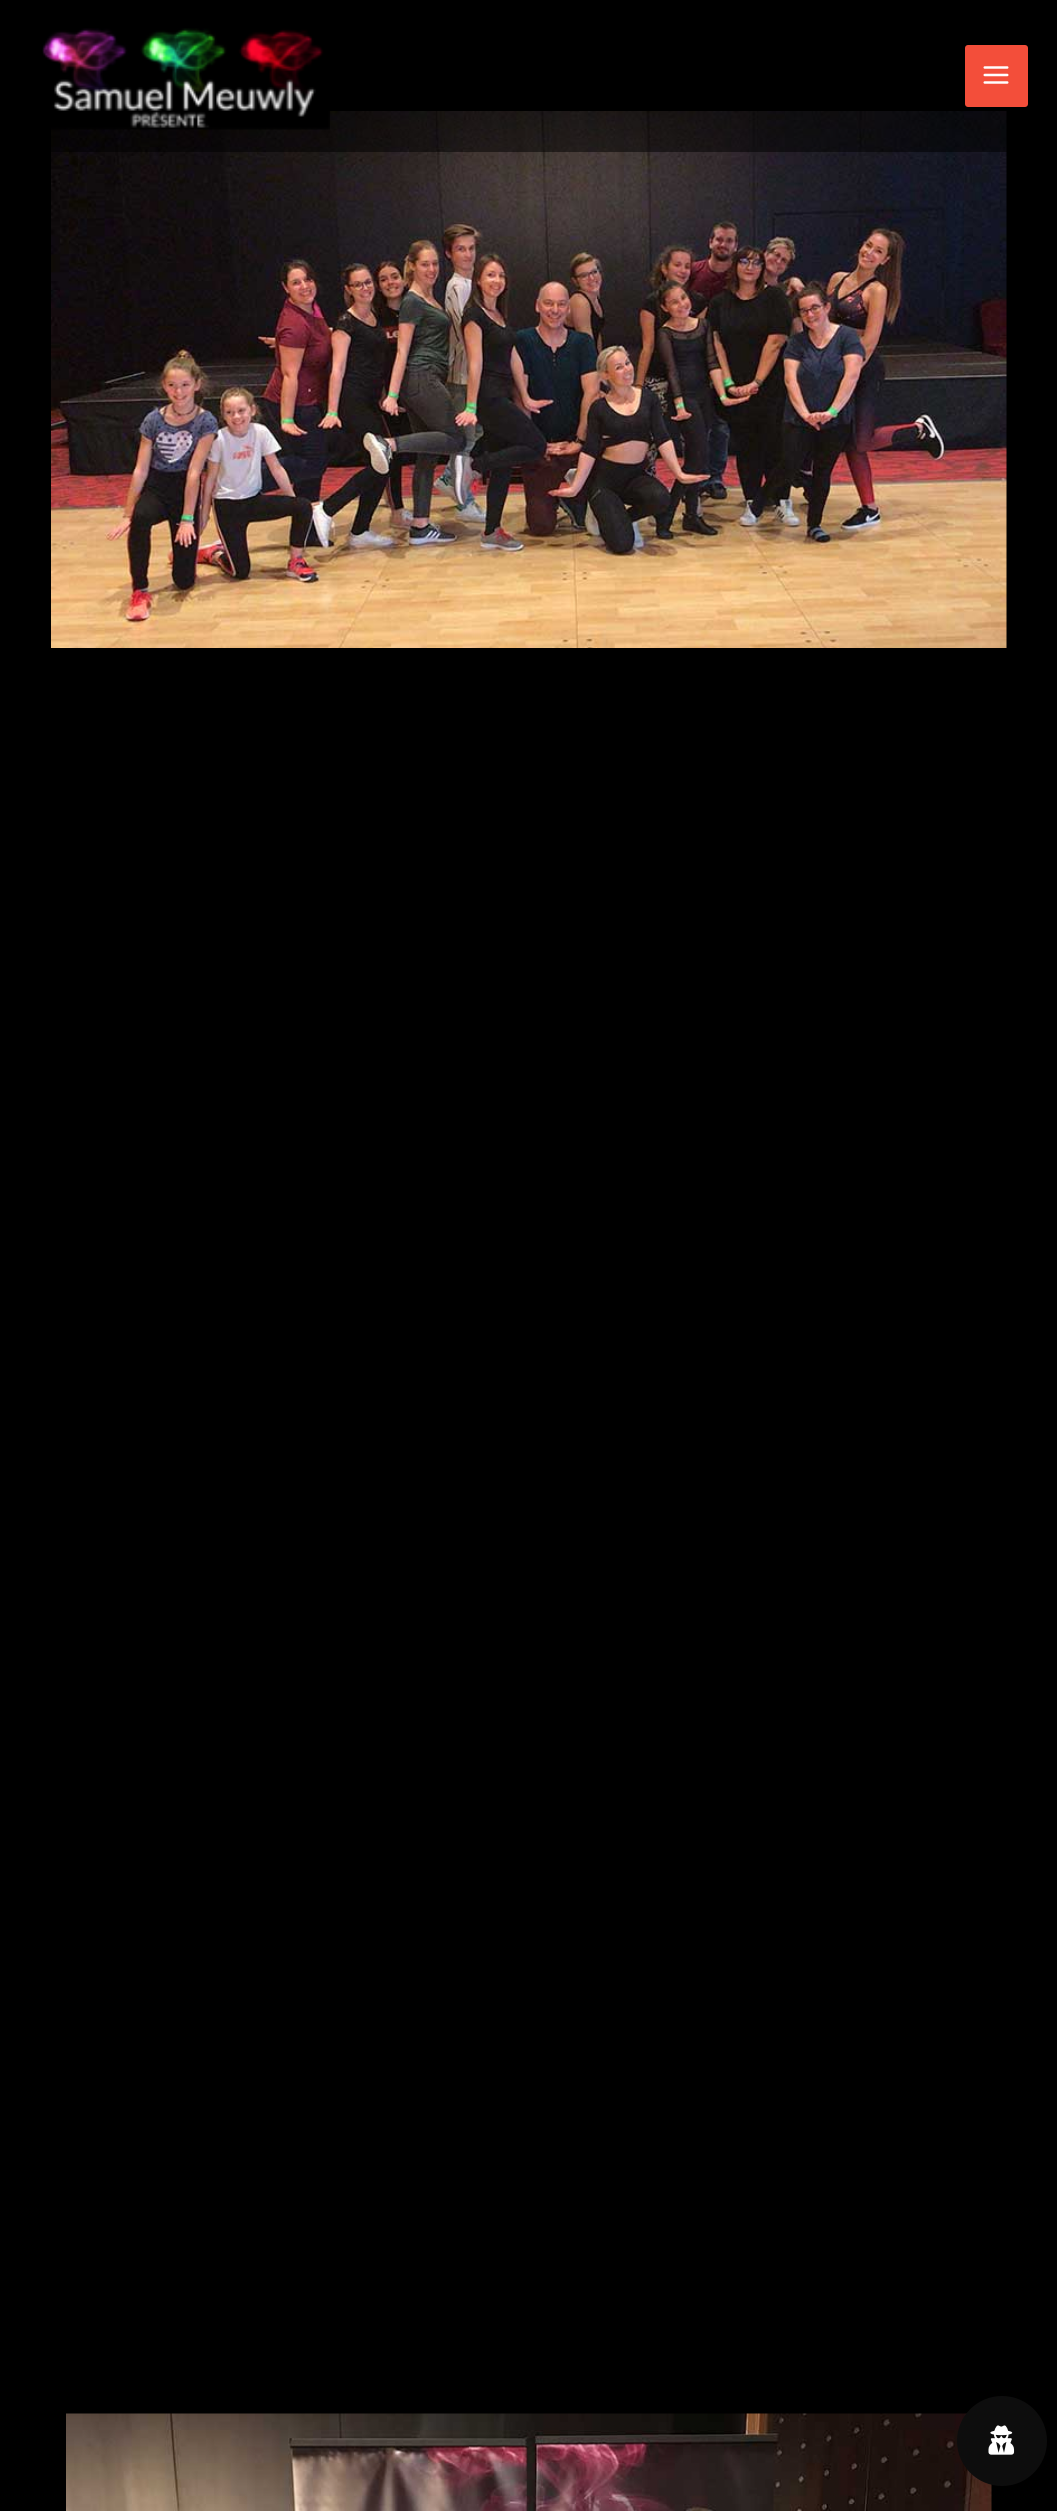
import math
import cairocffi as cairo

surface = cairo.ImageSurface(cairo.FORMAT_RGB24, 1057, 2511)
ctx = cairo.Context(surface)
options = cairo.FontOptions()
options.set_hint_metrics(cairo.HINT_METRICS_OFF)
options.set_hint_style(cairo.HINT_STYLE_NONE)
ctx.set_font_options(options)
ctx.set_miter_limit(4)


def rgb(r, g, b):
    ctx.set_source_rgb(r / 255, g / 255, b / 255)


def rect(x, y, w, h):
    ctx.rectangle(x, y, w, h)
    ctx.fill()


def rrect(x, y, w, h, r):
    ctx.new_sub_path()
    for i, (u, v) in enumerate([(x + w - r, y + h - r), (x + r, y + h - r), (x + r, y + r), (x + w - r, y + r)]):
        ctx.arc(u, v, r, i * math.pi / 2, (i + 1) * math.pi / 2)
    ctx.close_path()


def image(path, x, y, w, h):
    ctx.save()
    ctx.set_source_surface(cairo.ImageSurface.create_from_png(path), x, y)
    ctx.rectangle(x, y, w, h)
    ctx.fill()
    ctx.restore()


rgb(0, 0, 0)
ctx.paint()
image('image2.png', 51, 111, 956, 537)
ctx.set_source_rgba(0, 0, 0, 0.5)
rect(51, 111, 956, 41)
image('image0.png', 42, 28, 288, 102)
rgb(243, 78, 58)
rrect(965, 45, 63, 62, 3)
ctx.fill()
image('image1.png', 983, 66, 26, 18)
image('image3.png', 66, 2413, 926, 98)
rgb(13, 13, 13)
ctx.arc(1002, 2441, 45, 0, 2 * math.pi)
ctx.fill()
image('image4.png', 988, 2425, 27, 30)
surface.write_to_png('render.png')
